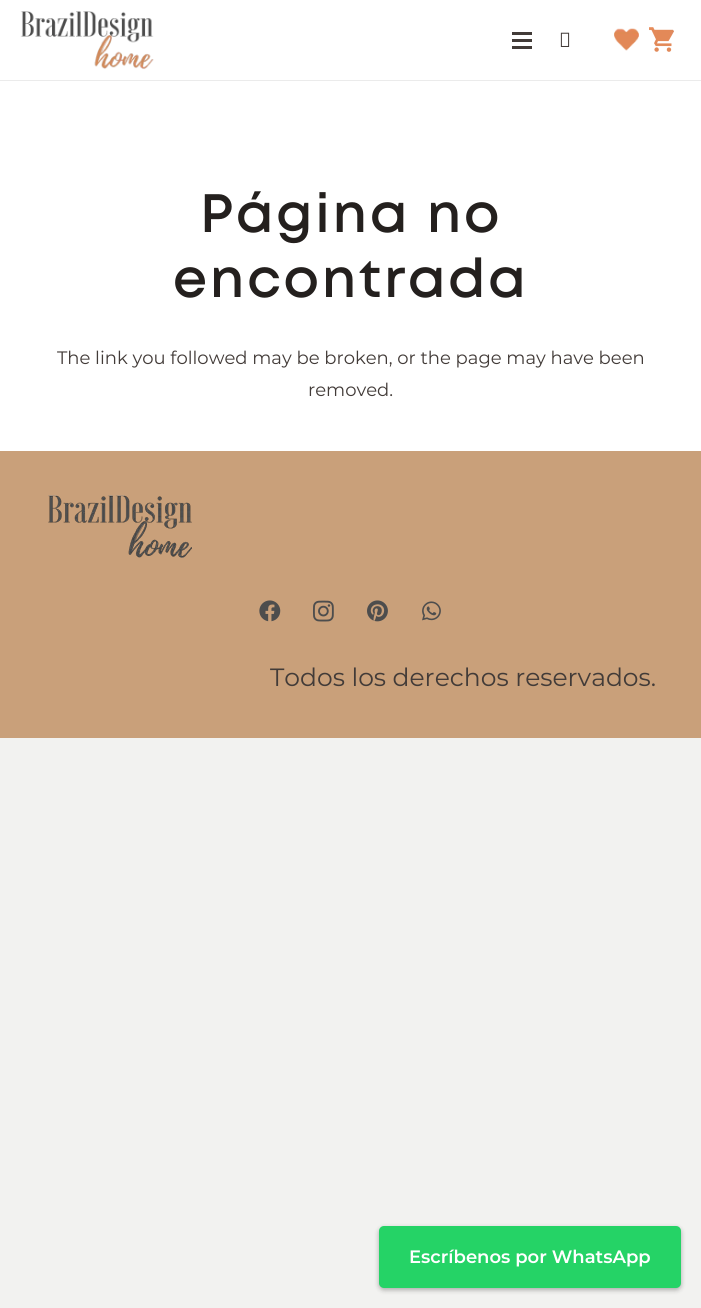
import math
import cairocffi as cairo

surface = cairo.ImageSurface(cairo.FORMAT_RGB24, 701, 1308)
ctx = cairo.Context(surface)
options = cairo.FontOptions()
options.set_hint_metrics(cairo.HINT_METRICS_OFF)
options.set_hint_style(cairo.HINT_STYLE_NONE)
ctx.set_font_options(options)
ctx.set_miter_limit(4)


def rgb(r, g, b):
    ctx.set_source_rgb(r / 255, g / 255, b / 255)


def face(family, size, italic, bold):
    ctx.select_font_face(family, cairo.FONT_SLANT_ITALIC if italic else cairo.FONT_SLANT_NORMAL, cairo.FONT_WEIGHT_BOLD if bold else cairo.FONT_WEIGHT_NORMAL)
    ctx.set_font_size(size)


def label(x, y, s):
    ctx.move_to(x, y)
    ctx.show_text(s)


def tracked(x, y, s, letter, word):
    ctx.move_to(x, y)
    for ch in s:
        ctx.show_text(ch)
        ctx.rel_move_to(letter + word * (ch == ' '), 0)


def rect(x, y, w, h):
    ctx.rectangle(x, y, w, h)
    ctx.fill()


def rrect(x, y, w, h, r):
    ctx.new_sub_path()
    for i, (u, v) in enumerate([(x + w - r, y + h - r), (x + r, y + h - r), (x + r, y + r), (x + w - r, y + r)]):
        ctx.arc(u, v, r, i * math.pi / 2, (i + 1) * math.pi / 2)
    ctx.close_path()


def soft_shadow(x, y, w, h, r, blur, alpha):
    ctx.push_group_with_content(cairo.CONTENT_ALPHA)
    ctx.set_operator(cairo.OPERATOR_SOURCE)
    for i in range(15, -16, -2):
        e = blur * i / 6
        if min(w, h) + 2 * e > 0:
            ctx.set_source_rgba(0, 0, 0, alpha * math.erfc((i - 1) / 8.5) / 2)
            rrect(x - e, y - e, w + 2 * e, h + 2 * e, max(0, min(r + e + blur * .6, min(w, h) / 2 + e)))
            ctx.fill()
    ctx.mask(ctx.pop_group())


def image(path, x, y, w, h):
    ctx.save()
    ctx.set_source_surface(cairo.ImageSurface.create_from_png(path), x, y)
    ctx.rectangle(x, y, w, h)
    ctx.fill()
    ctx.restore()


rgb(242, 242, 240)
ctx.paint()
rgb(255, 255, 255)
rect(0, 0, 701, 451)
rgb(235, 235, 235)
rect(0, 80, 701, 1)
image('image0.png', 20, 11, 134, 59)
rgb(66, 59, 56)
rect(512, 39, 20, 3)
rect(512, 32, 20, 3)
rect(512, 46, 20, 3)
image('image1.png', 560, 32, 10, 15)
image('image2.png', 614, 28, 25, 23)
image('image3.png', 649, 27, 25, 25)
face('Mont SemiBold', 54, 0, 0)
rgb(36, 32, 30)
tracked(200, 232, 'Página no', 2.75, 0)
tracked(173, 297, 'encontrada', 2.75, 0)
face('Montserrat', 18, 0, 0)
rgb(66, 59, 56)
label(57, 364, 'The link you followed may be broken, or the page may have been')
label(308, 396, 'removed.')
rgb(201, 160, 122)
rect(0, 451, 701, 287)
image('image4.png', 48, 495, 145, 63)
image('image5.png', 259, 600, 22, 22)
image('image6.png', 313, 600, 21, 22)
image('image7.png', 367, 600, 21, 22)
image('image8.png', 422, 601, 19, 20)
face('Montserrat', 25, 0, 0)
rgb(66, 59, 56)
label(270, 686, 'Todos los derechos reservados.')
rgb(0, 0, 0)
soft_shadow(379, 1228, 302, 62, 5, 2.5, 0.3)
rgb(37, 211, 102)
rrect(379, 1226, 302, 62, 5)
ctx.fill()
face('Montserrat SemiBold', 18, 0, 0)
rgb(255, 255, 255)
label(409, 1263, 'Escríbenos por WhatsApp')
surface.write_to_png('render.png')
